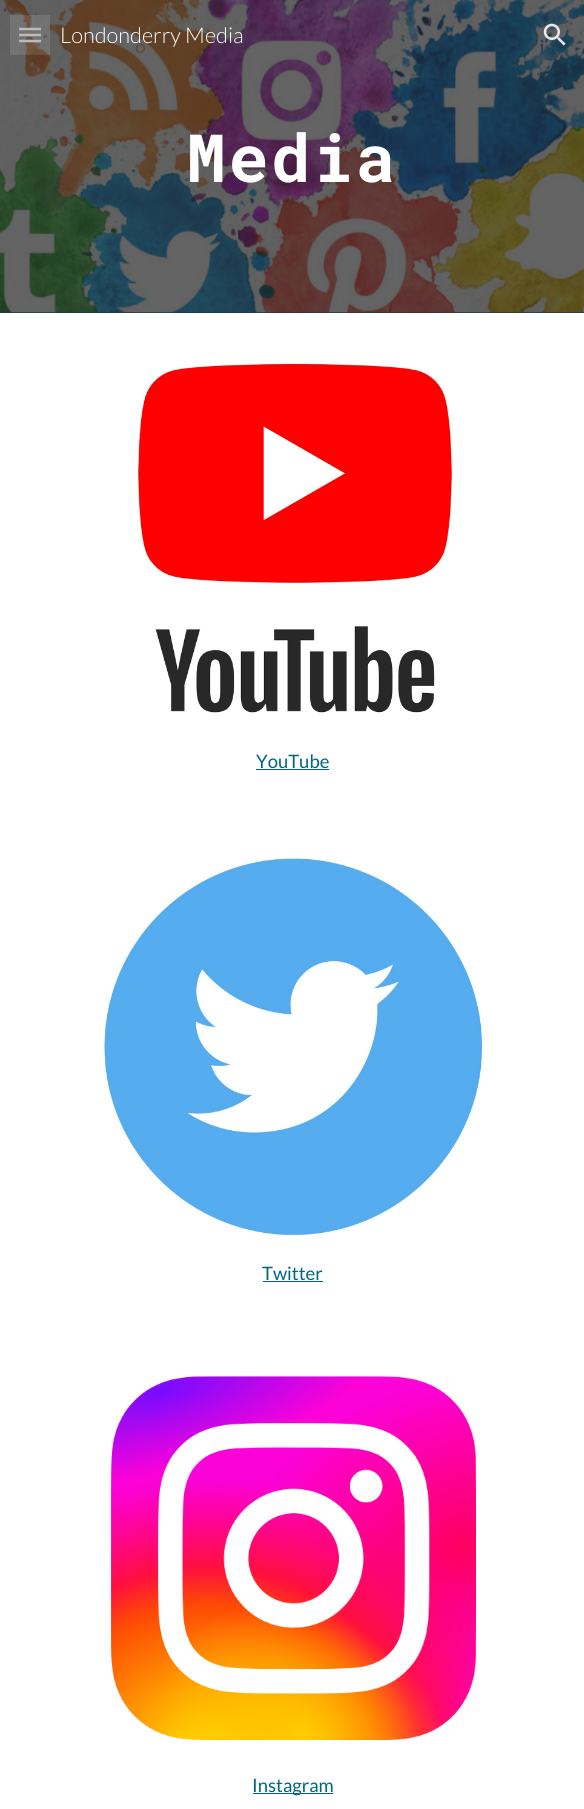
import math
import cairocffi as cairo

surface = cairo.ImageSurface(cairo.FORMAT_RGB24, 584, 1809)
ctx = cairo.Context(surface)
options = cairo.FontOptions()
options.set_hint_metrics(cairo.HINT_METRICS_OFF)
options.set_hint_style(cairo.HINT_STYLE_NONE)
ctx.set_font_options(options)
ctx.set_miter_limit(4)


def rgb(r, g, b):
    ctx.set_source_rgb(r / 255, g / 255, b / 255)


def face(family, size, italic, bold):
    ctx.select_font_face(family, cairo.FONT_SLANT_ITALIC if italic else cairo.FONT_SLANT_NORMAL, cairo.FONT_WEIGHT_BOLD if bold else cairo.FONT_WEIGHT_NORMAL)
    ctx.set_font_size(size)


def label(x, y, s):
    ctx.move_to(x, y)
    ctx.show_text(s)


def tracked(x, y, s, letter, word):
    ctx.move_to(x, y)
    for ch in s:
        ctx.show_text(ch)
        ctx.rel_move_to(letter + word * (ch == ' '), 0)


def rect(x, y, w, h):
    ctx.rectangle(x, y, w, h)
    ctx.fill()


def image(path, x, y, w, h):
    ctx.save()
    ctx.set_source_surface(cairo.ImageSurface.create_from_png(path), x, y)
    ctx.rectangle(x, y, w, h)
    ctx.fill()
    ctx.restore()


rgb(255, 255, 255)
ctx.paint()
rgb(33, 56, 67)
rect(0, 312, 584, 1)
image('image1.png', 0, 0, 584, 313)
ctx.new_path()
ctx.move_to(19, 29)
ctx.line_to(41, 29)
ctx.move_to(19, 35)
ctx.line_to(41, 35)
ctx.move_to(19, 41)
ctx.line_to(41, 41)
rgb(178, 178, 178)
ctx.set_line_width(2.5)
ctx.stroke()
ctx.set_source_rgba(1, 1, 1, 0.12)
rect(10, 15, 40, 40)
face('Lato Light', 21.75, 0, 0)
rgb(255, 255, 255)
label(60, 43, 'Londonderry Media')
image('image0.png', 543, 23, 23, 23)
face('Roboto Mono', 66.5, 0, 1)
tracked(186, 182, 'Media', 2.5, 0)
image('image2.png', 137, 363, 316, 350)
face('Lato', 18.5, 0, 0)
rgb(0, 101, 128)
label(256, 768, 'YouTube')
rect(256, 769, 73, 1)
image('image3.png', 104, 858, 380, 378)
label(262, 1280, 'Twitter')
rect(263, 1281, 60, 1)
image('image4.png', 111, 1376, 365, 364)
rect(253, 1793, 80, 1)
label(252, 1792, 'Instagram')
face('Google Sans Medium', 18, 0, 0)
rgb(97, 76, 58)
label(135, 53, 'o')
rgb(37, 67, 86)
label(540, 53, 'i')
surface.write_to_png('render.png')
